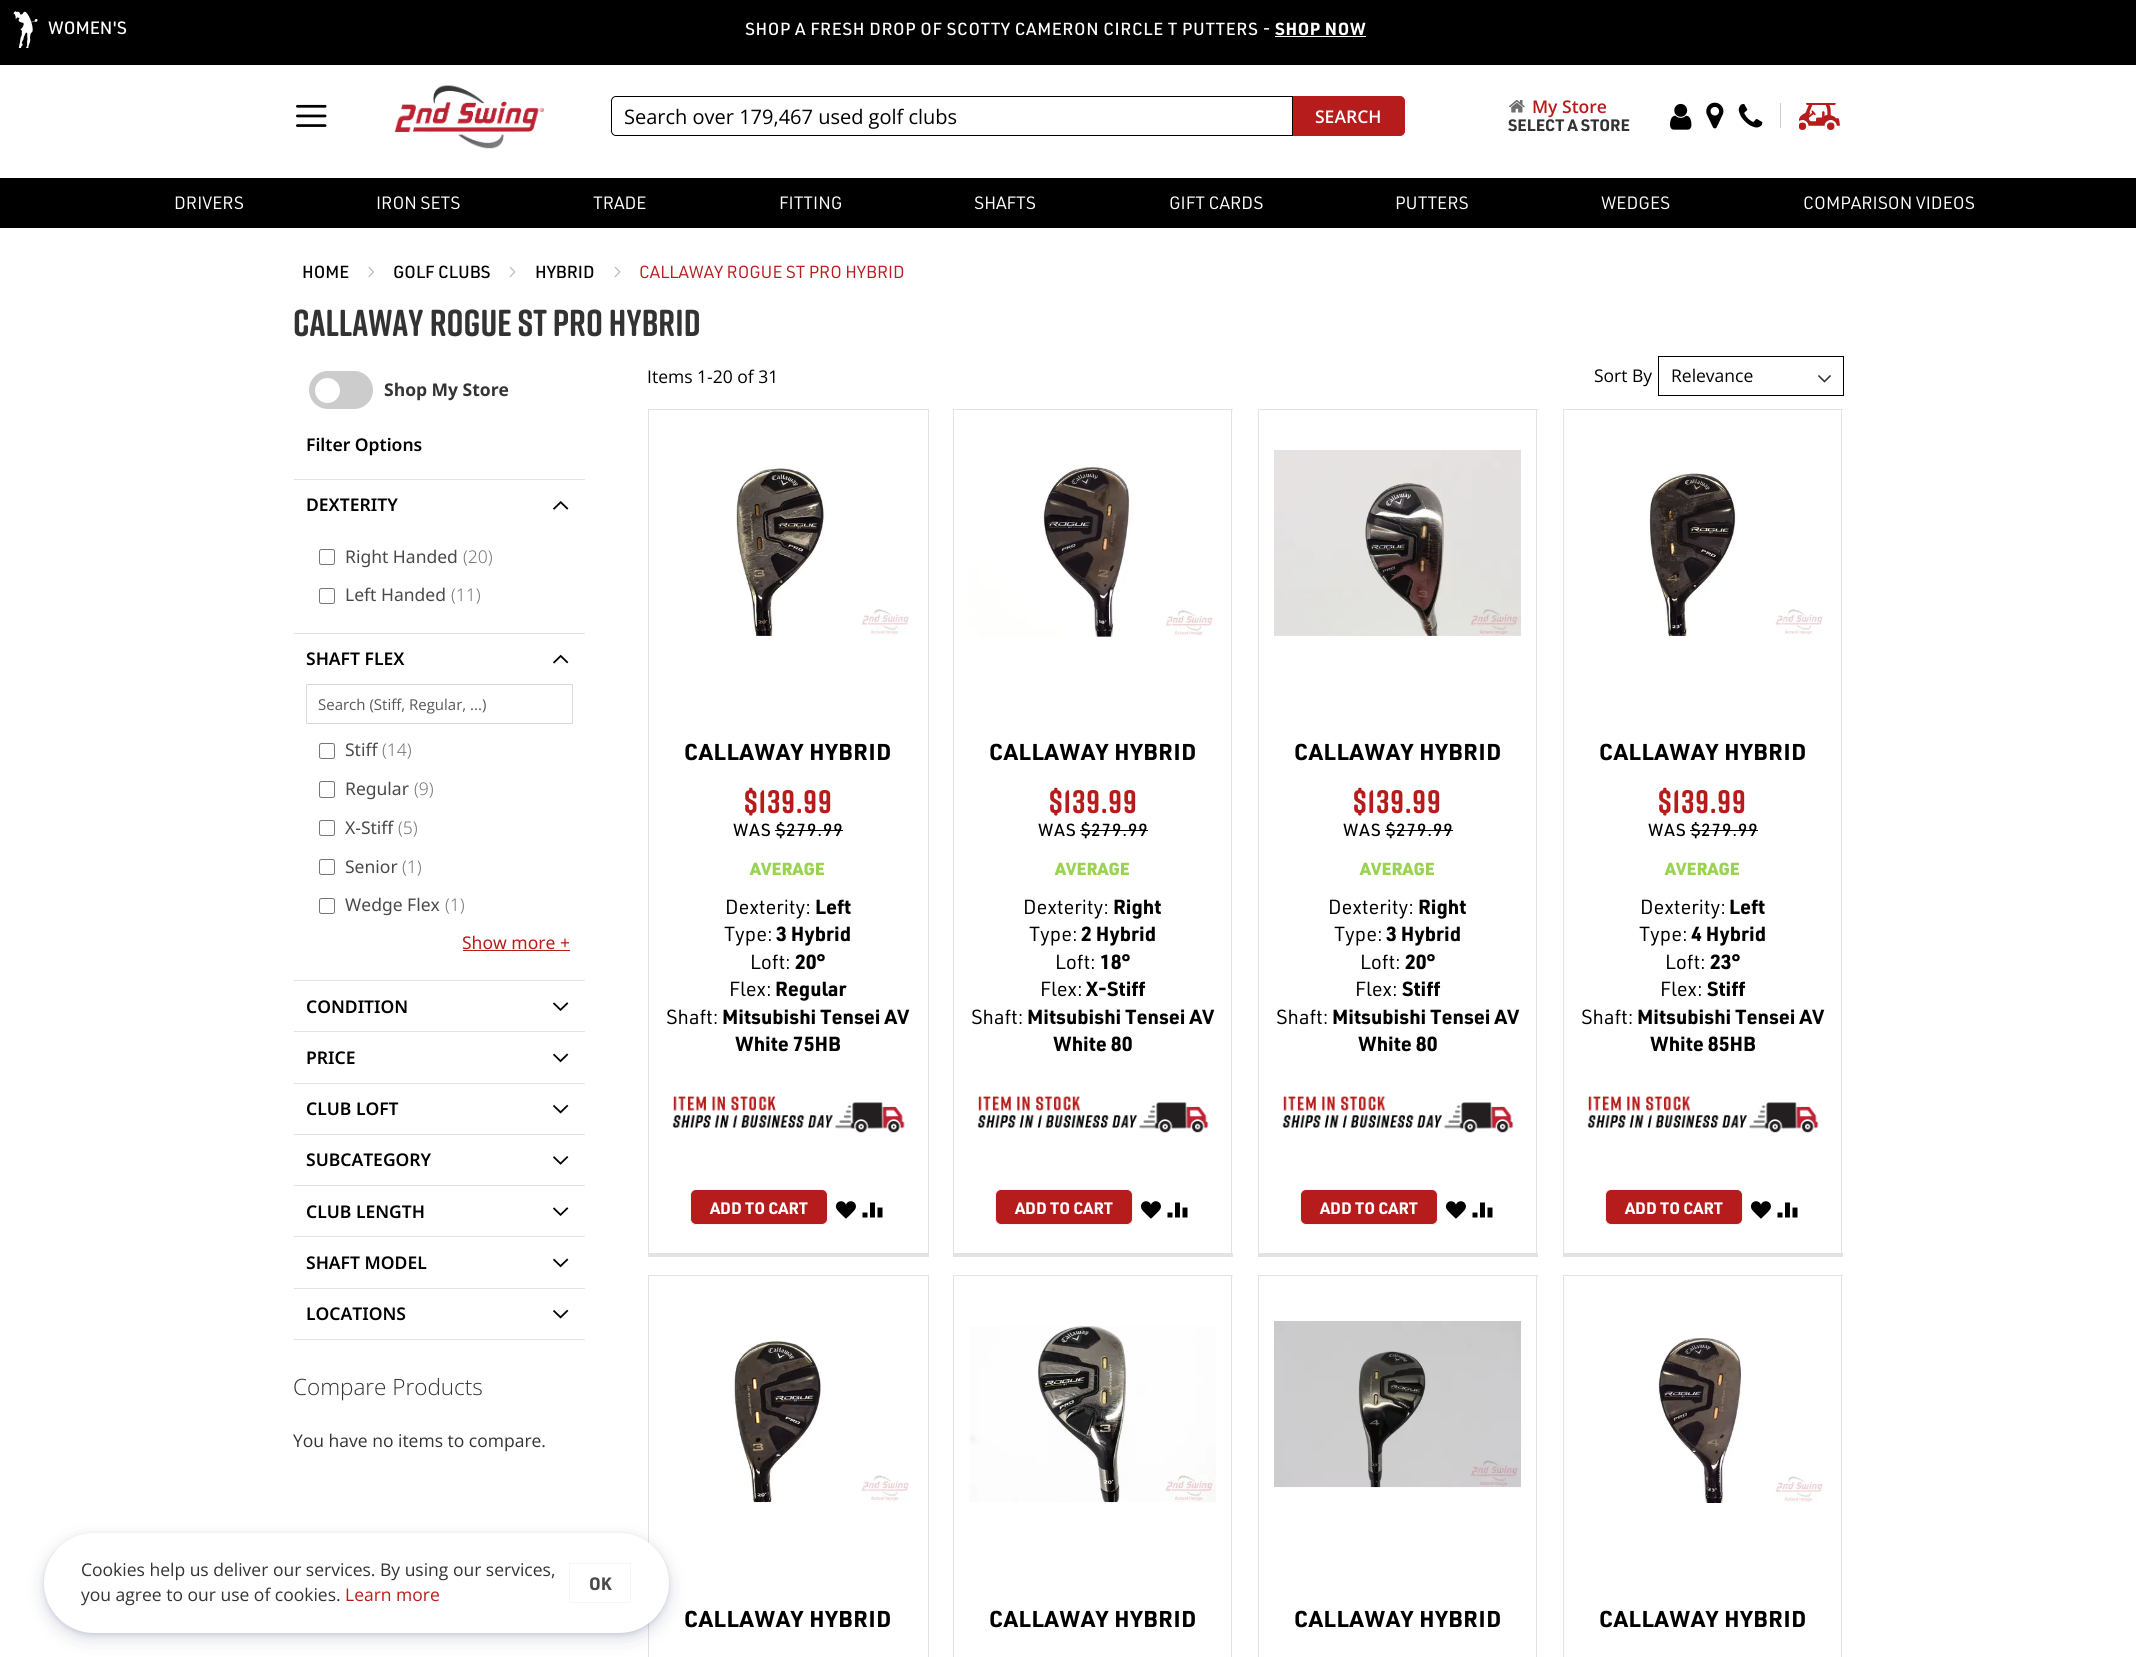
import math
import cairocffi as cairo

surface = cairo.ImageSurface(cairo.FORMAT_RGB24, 2136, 1657)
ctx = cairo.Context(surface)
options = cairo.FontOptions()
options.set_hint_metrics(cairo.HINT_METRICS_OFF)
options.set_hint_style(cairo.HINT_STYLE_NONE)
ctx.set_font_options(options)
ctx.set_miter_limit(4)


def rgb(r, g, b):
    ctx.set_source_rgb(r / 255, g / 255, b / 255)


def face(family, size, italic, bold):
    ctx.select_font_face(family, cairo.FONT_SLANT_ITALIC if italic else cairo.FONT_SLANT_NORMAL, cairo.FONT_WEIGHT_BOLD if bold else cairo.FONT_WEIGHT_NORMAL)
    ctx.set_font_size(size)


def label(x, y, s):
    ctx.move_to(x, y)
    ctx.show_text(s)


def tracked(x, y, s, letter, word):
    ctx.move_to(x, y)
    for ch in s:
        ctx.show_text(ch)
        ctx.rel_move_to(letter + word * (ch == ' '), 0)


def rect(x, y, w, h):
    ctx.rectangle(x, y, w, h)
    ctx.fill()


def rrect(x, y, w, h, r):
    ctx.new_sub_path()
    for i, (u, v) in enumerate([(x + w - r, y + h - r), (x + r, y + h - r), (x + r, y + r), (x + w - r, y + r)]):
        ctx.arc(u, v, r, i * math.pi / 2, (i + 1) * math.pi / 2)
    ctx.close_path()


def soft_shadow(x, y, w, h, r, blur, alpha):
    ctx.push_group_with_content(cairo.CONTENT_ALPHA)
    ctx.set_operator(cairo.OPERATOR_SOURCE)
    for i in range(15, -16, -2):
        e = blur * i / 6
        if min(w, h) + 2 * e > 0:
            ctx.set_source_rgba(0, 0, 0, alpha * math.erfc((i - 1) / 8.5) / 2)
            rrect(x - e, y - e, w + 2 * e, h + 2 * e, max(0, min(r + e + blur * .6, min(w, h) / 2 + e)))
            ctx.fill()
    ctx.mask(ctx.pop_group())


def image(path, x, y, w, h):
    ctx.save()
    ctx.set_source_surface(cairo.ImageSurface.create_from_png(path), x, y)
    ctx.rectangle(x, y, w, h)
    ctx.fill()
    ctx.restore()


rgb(255, 255, 255)
ctx.paint()
rgb(0, 0, 0)
rect(0, 0, 2136, 65)
image('image0.png', 13, 11, 25, 37)
face('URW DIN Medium', 17.5, 0, 0)
rgb(255, 255, 255)
label(48, 34, 'WOMEN\'S')
face('URW DIN Medium', 17.15, 0, 0)
tracked(745, 35, 'SHOP A FRESH DROP OF SCOTTY CAMERON CIRCLE T PUTTERS -', 0.62, 0)
face('URW DIN', 17.15, 0, 1)
tracked(1275, 35, 'SHOP NOW', 0.62, 0)
rect(1275, 36, 91, 1)
image('image1.png', 296, 104, 31, 23)
image('image2.png', 394, 85, 150, 64)
ctx.new_path()
ctx.move_to(616, 96.5)
ctx.line_to(1292.5, 96.5)
ctx.line_to(1292.5, 135.5)
ctx.line_to(616, 135.5)
ctx.curve_to(613.5, 135.5, 611.5, 133.5, 611.5, 131)
ctx.line_to(611.5, 101)
ctx.curve_to(611.5, 98.5, 613.5, 96.5, 616, 96.5)
ctx.close_path()
rgb(0, 0, 0)
ctx.set_line_width(1)
ctx.stroke()
face('Open Sans', 20, 0, 0)
label(624, 124, 'Search over 179,467 used golf clubs')
rgb(183, 28, 28)
ctx.new_path()
ctx.move_to(1293.5, 96.5)
ctx.line_to(1400, 96.5)
ctx.curve_to(1402.5, 96.5, 1404.5, 98.5, 1404.5, 101)
ctx.line_to(1404.5, 131)
ctx.curve_to(1404.5, 133.5, 1402.5, 135.5, 1400, 135.5)
ctx.line_to(1293.5, 135.5)
ctx.close_path()
ctx.fill_preserve()
ctx.stroke()
face('Open Sans SemiBold', 17.5, 0, 0)
rgb(255, 255, 255)
label(1315, 123, 'SEARCH')
image('image3.png', 1509, 100, 16, 13)
rgb(183, 28, 28)
label(1532, 113, 'My Store')
face('URW DIN', 16.25, 0, 1)
rgb(51, 51, 51)
label(1508, 131, 'SELECT A STORE')
image('image4.png', 1670, 103, 22, 27)
image('image5.png', 1706, 102, 18, 27)
image('image6.png', 1738, 103, 25, 25)
rgb(204, 204, 204)
rect(1780, 103, 1, 25)
image('image7.png', 1799, 103, 41, 27)
rgb(0, 0, 0)
rect(0, 178, 2136, 50)
face('URW DIN', 17.5, 0, 0)
rgb(255, 255, 255)
label(174, 209, 'DRIVERS')
label(376, 209, 'IRON SETS')
label(593, 209, 'TRADE')
label(779, 209, 'FITTING')
label(974, 209, 'SHAFTS')
label(1169, 209, 'GIFT CARDS')
label(1395, 209, 'PUTTERS')
label(1601, 209, 'WEDGES')
label(1803, 209, 'COMPARISON VIDEOS')
face('URW DIN Medium', 17.15, 0, 0)
rgb(0, 0, 0)
label(302, 278, 'HOME')
image('image8.png', 368, 266, 7, 12)
label(393, 278, 'GOLF CLUBS')
image('image9.png', 509, 266, 7, 12)
label(535, 278, 'HYBRID')
image('image9.png', 614, 266, 7, 12)
face('URW DIN', 17.15, 0, 0)
rgb(183, 28, 28)
label(639, 278, 'CALLAWAY ROGUE ST PRO HYBRID')
face('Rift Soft', 37.5, 0, 1)
rgb(51, 51, 51)
label(293, 336, 'CALLAWAY ROGUE ST PRO HYBRID')
rgb(204, 204, 204)
rrect(309, 371, 64, 38, 19)
ctx.fill()
rgb(255, 255, 255)
ctx.arc(327.5, 390.5, 12.5, 0, 2 * math.pi)
ctx.fill()
face('Open Sans', 17.5, 0, 1)
rgb(51, 51, 51)
label(384, 396, 'Shop My Store')
rgb(227, 227, 227)
rect(294, 479, 291, 1)
face('Noto Sans SemiBold', 17.5, 0, 0)
rgb(0, 0, 0)
label(306, 451, 'Filter Options')
rgb(227, 227, 227)
rect(294, 633, 291, 1)
rgb(0, 0, 0)
label(306, 511, 'DEXTERITY')
image('image10.png', 553, 501, 16, 9)
rrect(319.5, 549.5, 15, 15, 2)
rgb(118, 118, 118)
ctx.stroke()
face('Noto Sans', 17.5, 0, 0)
rgb(73, 73, 73)
label(345, 563, 'Right Handed')
face('Noto Sans Light', 17.5, 0, 0)
rgb(117, 117, 117)
label(463, 563, '(20)')
rrect(319.5, 588.5, 15, 15, 2)
rgb(118, 118, 118)
ctx.stroke()
face('Noto Sans', 17.5, 0, 0)
rgb(73, 73, 73)
label(345, 601, 'Left Handed')
face('Noto Sans Light', 17.5, 0, 0)
rgb(117, 117, 117)
label(451, 601, '(11)')
rgb(227, 227, 227)
rect(294, 980, 291, 1)
face('Noto Sans SemiBold', 17.5, 0, 0)
rgb(0, 0, 0)
label(306, 665, 'SHAFT FLEX')
image('image11.png', 553, 654, 16, 10)
rrect(306.5, 684.5, 266, 39, 0.5)
rgb(217, 217, 217)
ctx.stroke()
face('Open Sans', 15, 0, 0)
rgb(87, 87, 87)
label(318, 710, 'Search (Stiff, Regular, ...)')
rrect(319.5, 743.5, 15, 15, 2)
rgb(118, 118, 118)
ctx.stroke()
face('Noto Sans', 17.5, 0, 0)
rgb(73, 73, 73)
label(345, 756, 'Stiff')
face('Noto Sans Light', 17.5, 0, 0)
rgb(117, 117, 117)
label(382, 756, '(14)')
rrect(319.5, 781.5, 15, 16, 2)
rgb(118, 118, 118)
ctx.stroke()
face('Noto Sans', 17.5, 0, 0)
rgb(73, 73, 73)
label(345, 795, 'Regular')
face('Noto Sans Light', 17.5, 0, 0)
rgb(117, 117, 117)
label(414, 795, '(9)')
rrect(319.5, 820.5, 15, 15, 2)
rgb(118, 118, 118)
ctx.stroke()
face('Noto Sans', 17.5, 0, 0)
rgb(73, 73, 73)
label(345, 834, 'X-Stiff')
face('Noto Sans Light', 17.5, 0, 0)
rgb(117, 117, 117)
label(398, 834, '(5)')
rrect(319.5, 859.5, 15, 15, 2)
rgb(118, 118, 118)
ctx.stroke()
face('Noto Sans', 17.5, 0, 0)
rgb(73, 73, 73)
label(345, 873, 'Senior')
face('Noto Sans Light', 17.5, 0, 0)
rgb(117, 117, 117)
label(402, 873, '(1)')
rrect(319.5, 898.5, 15, 15, 2)
rgb(118, 118, 118)
ctx.stroke()
face('Noto Sans', 17.5, 0, 0)
rgb(73, 73, 73)
label(345, 911, 'Wedge Flex')
face('Noto Sans Light', 17.5, 0, 0)
rgb(117, 117, 117)
label(445, 911, '(1)')
face('Noto Sans', 17.5, 0, 0)
rgb(183, 28, 28)
label(462, 949, 'Show more +')
rect(463, 950, 107, 1)
rgb(227, 227, 227)
rect(294, 1031, 291, 1)
face('Noto Sans SemiBold', 17.5, 0, 0)
rgb(0, 0, 0)
label(306, 1013, 'CONDITION')
image('image12.png', 553, 1002, 16, 9)
rgb(227, 227, 227)
rect(294, 1083, 291, 1)
rgb(0, 0, 0)
label(306, 1064, 'PRICE')
image('image13.png', 553, 1053, 16, 10)
rgb(227, 227, 227)
rect(294, 1134, 291, 1)
rgb(0, 0, 0)
label(306, 1115, 'CLUB LOFT')
image('image14.png', 553, 1104, 16, 10)
rgb(227, 227, 227)
rect(294, 1185, 291, 1)
rgb(0, 0, 0)
label(306, 1166, 'SUBCATEGORY')
image('image15.png', 553, 1156, 16, 9)
rgb(227, 227, 227)
rect(294, 1236, 291, 1)
rgb(0, 0, 0)
label(306, 1218, 'CLUB LENGTH')
image('image12.png', 553, 1207, 16, 9)
rgb(227, 227, 227)
rect(294, 1288, 291, 1)
rgb(0, 0, 0)
label(306, 1269, 'SHAFT MODEL')
image('image13.png', 553, 1258, 16, 10)
rgb(227, 227, 227)
rect(294, 1339, 291, 1)
rgb(0, 0, 0)
label(306, 1320, 'LOCATIONS')
image('image14.png', 553, 1309, 16, 10)
face('Open Sans', 17.5, 0, 0)
label(647, 383, 'Items 1-20 of 31')
label(1594, 382, 'Sort By')
image('image16.png', 1818, 374, 13, 9)
ctx.rectangle(1658.5, 356.5, 185, 39)
ctx.stroke()
label(1671, 382, 'Relevance')
rgb(227, 227, 227)
rect(648, 409, 281, 1)
rect(928, 409, 1, 847)
rect(648, 1253, 281, 4)
rect(648, 409, 1, 847)
image('image17.png', 736, 467, 173, 169)
face('URW DIN', 22.5, 0, 1)
rgb(0, 0, 0)
tracked(684, 760, 'CALLAWAY HYBRID', 0.75, 0)
face('Rift Soft', 32.5, 0, 1)
rgb(183, 28, 28)
tracked(744, 813, '$139.99', 1, 0)
face('URW DIN Medium', 17.15, 0, 0)
rgb(0, 0, 0)
tracked(733, 836, 'WAS $279.99', 1, 0)
rect(775, 830, 68, 1)
face('URW DIN Black', 17.15, 0, 0)
rgb(154, 210, 81)
label(750, 875, 'AVERAGE')
face('URW DIN', 20, 0, 0)
rgb(0, 0, 0)
label(725, 914, 'Dexterity:')
face('URW DIN', 20, 0, 1)
label(815, 914, 'Left')
face('URW DIN', 20, 0, 0)
label(724, 941, 'Type:')
face('URW DIN', 20, 0, 1)
label(776, 941, '3 Hybrid')
face('URW DIN', 20, 0, 0)
label(750, 969, 'Loft:')
face('URW DIN', 20, 0, 1)
label(795, 969, '20°')
face('URW DIN', 20, 0, 0)
label(729, 996, 'Flex:')
face('URW DIN', 20, 0, 1)
label(775, 996, 'Regular')
face('URW DIN', 20, 0, 0)
label(666, 1024, 'Shaft:')
face('URW DIN', 20, 0, 1)
label(722, 1024, 'Mitsubishi Tensei AV')
label(735, 1051, 'White 75HB')
image('image18.png', 672, 1096, 233, 37)
rgb(183, 28, 28)
rrect(690.5, 1189.5, 137, 35, 5.5)
ctx.fill_preserve()
rgb(246, 246, 246)
ctx.stroke()
face('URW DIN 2', 16.25, 0, 1)
rgb(255, 255, 255)
label(710, 1214, 'ADD TO CART')
image('image19.png', 835, 1201, 21, 18)
image('image20.png', 862, 1202, 21, 16)
rgb(227, 227, 227)
rect(953, 409, 280, 1)
rect(1231, 409, 1, 847)
rect(953, 1253, 280, 4)
rect(953, 409, 1, 847)
image('image21.png', 969, 466, 245, 171)
face('URW DIN', 22.5, 0, 1)
rgb(0, 0, 0)
tracked(989, 760, 'CALLAWAY HYBRID', 0.75, 0)
face('Rift Soft', 32.5, 0, 1)
rgb(183, 28, 28)
tracked(1049, 813, '$139.99', 1, 0)
face('URW DIN Medium', 17.15, 0, 0)
rgb(0, 0, 0)
tracked(1038, 836, 'WAS $279.99', 1, 0)
rect(1080, 830, 68, 1)
face('URW DIN Black', 17.15, 0, 0)
rgb(154, 210, 81)
label(1055, 875, 'AVERAGE')
face('URW DIN', 20, 0, 0)
rgb(0, 0, 0)
label(1023, 914, 'Dexterity:')
face('URW DIN', 20, 0, 1)
label(1113, 914, 'Right')
face('URW DIN', 20, 0, 0)
label(1029, 941, 'Type:')
face('URW DIN', 20, 0, 1)
label(1081, 941, '2 Hybrid')
face('URW DIN', 20, 0, 0)
label(1055, 969, 'Loft:')
face('URW DIN', 20, 0, 1)
label(1100, 969, '18°')
face('URW DIN', 20, 0, 0)
label(1040, 996, 'Flex:')
face('URW DIN', 20, 0, 1)
label(1086, 996, 'X-Stiff')
face('URW DIN', 20, 0, 0)
label(971, 1024, 'Shaft:')
face('URW DIN', 20, 0, 1)
label(1027, 1024, 'Mitsubishi Tensei AV')
label(1053, 1051, 'White 80')
image('image22.png', 977, 1096, 232, 37)
rgb(183, 28, 28)
rrect(995.5, 1189.5, 137, 35, 5.5)
ctx.fill_preserve()
rgb(246, 246, 246)
ctx.stroke()
face('URW DIN 2', 16.25, 0, 1)
rgb(255, 255, 255)
label(1015, 1214, 'ADD TO CART')
image('image19.png', 1140, 1201, 21, 18)
image('image20.png', 1167, 1202, 21, 16)
rgb(227, 227, 227)
rect(1258, 409, 280, 1)
rect(1536, 409, 1, 847)
rect(1258, 1253, 280, 4)
rect(1258, 409, 1, 847)
image('image23.png', 1274, 450, 247, 186)
face('URW DIN', 22.5, 0, 1)
rgb(0, 0, 0)
tracked(1294, 760, 'CALLAWAY HYBRID', 0.75, 0)
face('Rift Soft', 32.5, 0, 1)
rgb(183, 28, 28)
tracked(1353, 813, '$139.99', 1, 0)
face('URW DIN Medium', 17.15, 0, 0)
rgb(0, 0, 0)
tracked(1343, 836, 'WAS $279.99', 1, 0)
rect(1385, 830, 68, 1)
face('URW DIN Black', 17.15, 0, 0)
rgb(154, 210, 81)
label(1360, 875, 'AVERAGE')
face('URW DIN', 20, 0, 0)
rgb(0, 0, 0)
label(1328, 914, 'Dexterity:')
face('URW DIN', 20, 0, 1)
label(1418, 914, 'Right')
face('URW DIN', 20, 0, 0)
label(1334, 941, 'Type:')
face('URW DIN', 20, 0, 1)
label(1386, 941, '3 Hybrid')
face('URW DIN', 20, 0, 0)
label(1360, 969, 'Loft:')
face('URW DIN', 20, 0, 1)
label(1405, 969, '20°')
face('URW DIN', 20, 0, 0)
label(1355, 996, 'Flex:')
face('URW DIN', 20, 0, 1)
label(1402, 996, 'Stiff')
face('URW DIN', 20, 0, 0)
label(1276, 1024, 'Shaft:')
face('URW DIN', 20, 0, 1)
label(1332, 1024, 'Mitsubishi Tensei AV')
label(1358, 1051, 'White 80')
image('image22.png', 1282, 1096, 232, 37)
rgb(183, 28, 28)
rrect(1300.5, 1189.5, 137, 35, 5.5)
ctx.fill_preserve()
rgb(246, 246, 246)
ctx.stroke()
face('URW DIN 2', 16.25, 0, 1)
rgb(255, 255, 255)
label(1320, 1214, 'ADD TO CART')
image('image19.png', 1445, 1201, 21, 18)
image('image20.png', 1472, 1202, 21, 16)
rgb(227, 227, 227)
rect(1563, 409, 280, 1)
rect(1841, 409, 1, 847)
rect(1563, 1253, 280, 4)
rect(1563, 409, 1, 847)
image('image24.png', 1648, 472, 175, 164)
face('URW DIN', 22.5, 0, 1)
rgb(0, 0, 0)
tracked(1599, 760, 'CALLAWAY HYBRID', 0.75, 0)
face('Rift Soft', 32.5, 0, 1)
rgb(183, 28, 28)
tracked(1658, 813, '$139.99', 1, 0)
face('URW DIN Medium', 17.15, 0, 0)
rgb(0, 0, 0)
tracked(1648, 836, 'WAS $279.99', 1, 0)
rect(1690, 830, 68, 1)
face('URW DIN Black', 17.15, 0, 0)
rgb(154, 210, 81)
label(1665, 875, 'AVERAGE')
face('URW DIN', 20, 0, 0)
rgb(0, 0, 0)
label(1640, 914, 'Dexterity:')
face('URW DIN', 20, 0, 1)
label(1729, 914, 'Left')
face('URW DIN', 20, 0, 0)
label(1639, 941, 'Type:')
face('URW DIN', 20, 0, 1)
label(1691, 941, '4 Hybrid')
face('URW DIN', 20, 0, 0)
label(1665, 969, 'Loft:')
face('URW DIN', 20, 0, 1)
label(1710, 969, '23°')
face('URW DIN', 20, 0, 0)
label(1660, 996, 'Flex:')
face('URW DIN', 20, 0, 1)
label(1707, 996, 'Stiff')
face('URW DIN', 20, 0, 0)
label(1581, 1024, 'Shaft:')
face('URW DIN', 20, 0, 1)
label(1637, 1024, 'Mitsubishi Tensei AV')
label(1650, 1051, 'White 85HB')
image('image22.png', 1587, 1096, 232, 37)
rgb(183, 28, 28)
rrect(1605.5, 1189.5, 137, 35, 5.5)
ctx.fill_preserve()
rgb(246, 246, 246)
ctx.stroke()
face('URW DIN 2', 16.25, 0, 1)
rgb(255, 255, 255)
label(1625, 1214, 'ADD TO CART')
image('image19.png', 1750, 1201, 21, 18)
image('image20.png', 1777, 1202, 21, 16)
rgb(227, 227, 227)
rect(648, 1275, 281, 1)
rect(928, 1275, 1, 382)
rect(648, 1275, 1, 382)
image('image25.png', 733, 1340, 176, 163)
face('URW DIN', 22.5, 0, 1)
rgb(0, 0, 0)
tracked(684, 1627, 'CALLAWAY HYBRID', 0.75, 0)
rgb(227, 227, 227)
rect(953, 1275, 280, 1)
rect(1231, 1275, 1, 382)
rect(953, 1275, 1, 382)
image('image26.png', 969, 1326, 247, 177)
rgb(0, 0, 0)
tracked(989, 1627, 'CALLAWAY HYBRID', 0.75, 0)
rgb(227, 227, 227)
rect(1258, 1275, 280, 1)
rect(1536, 1275, 1, 382)
rect(1258, 1275, 1, 382)
image('image27.png', 1274, 1321, 247, 167)
rgb(0, 0, 0)
tracked(1294, 1627, 'CALLAWAY HYBRID', 0.75, 0)
rgb(227, 227, 227)
rect(1563, 1275, 280, 1)
rect(1841, 1275, 1, 382)
rect(1563, 1275, 1, 382)
image('image28.png', 1658, 1338, 166, 165)
rgb(0, 0, 0)
tracked(1599, 1627, 'CALLAWAY HYBRID', 0.75, 0)
face('Open Sans Light', 22.5, 0, 0)
rgb(51, 51, 51)
label(293, 1395, 'Compare Products')
face('Open Sans', 17.5, 0, 0)
label(293, 1447, 'You have no items to compare.')
rgb(93, 100, 148)
soft_shadow(44, 1535, 625, 100, 50, 2.5, 0.2)
rgb(37, 44, 97)
soft_shadow(44, 1539, 625, 100, 50, 9.5, 0.15)
rgb(255, 255, 255)
rrect(44, 1533, 625, 100, 50)
ctx.fill()
rgb(51, 51, 51)
label(81, 1576, 'Cookies help us deliver our services. By using our services,')
label(81, 1601, 'you agree to our use of cookies.')
rgb(183, 28, 28)
label(345, 1601, 'Learn more')
ctx.rectangle(569.5, 1563.5, 61, 39)
rgb(246, 246, 246)
ctx.stroke()
face('URW DIN 2', 17.5, 0, 1)
rgb(73, 73, 73)
label(589, 1590, 'OK')
surface.write_to_png('render.png')
